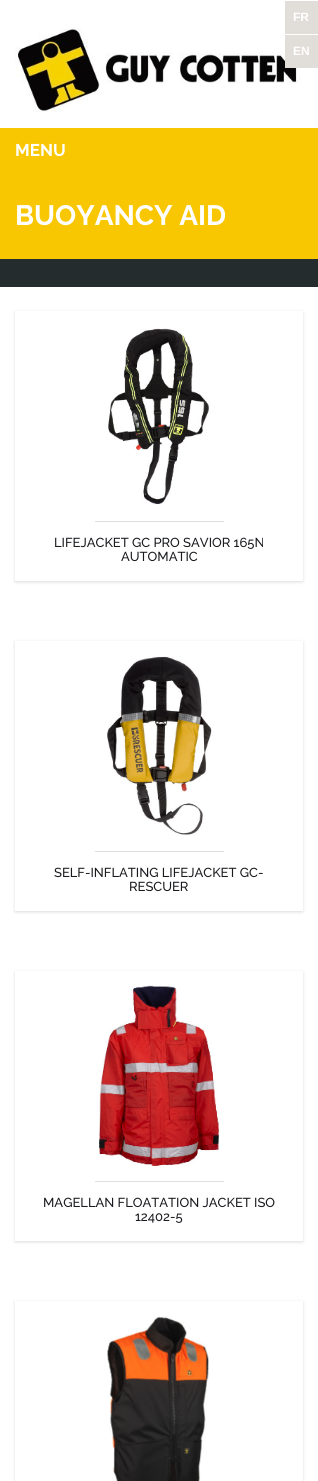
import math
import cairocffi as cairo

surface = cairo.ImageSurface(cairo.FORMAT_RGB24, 318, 1481)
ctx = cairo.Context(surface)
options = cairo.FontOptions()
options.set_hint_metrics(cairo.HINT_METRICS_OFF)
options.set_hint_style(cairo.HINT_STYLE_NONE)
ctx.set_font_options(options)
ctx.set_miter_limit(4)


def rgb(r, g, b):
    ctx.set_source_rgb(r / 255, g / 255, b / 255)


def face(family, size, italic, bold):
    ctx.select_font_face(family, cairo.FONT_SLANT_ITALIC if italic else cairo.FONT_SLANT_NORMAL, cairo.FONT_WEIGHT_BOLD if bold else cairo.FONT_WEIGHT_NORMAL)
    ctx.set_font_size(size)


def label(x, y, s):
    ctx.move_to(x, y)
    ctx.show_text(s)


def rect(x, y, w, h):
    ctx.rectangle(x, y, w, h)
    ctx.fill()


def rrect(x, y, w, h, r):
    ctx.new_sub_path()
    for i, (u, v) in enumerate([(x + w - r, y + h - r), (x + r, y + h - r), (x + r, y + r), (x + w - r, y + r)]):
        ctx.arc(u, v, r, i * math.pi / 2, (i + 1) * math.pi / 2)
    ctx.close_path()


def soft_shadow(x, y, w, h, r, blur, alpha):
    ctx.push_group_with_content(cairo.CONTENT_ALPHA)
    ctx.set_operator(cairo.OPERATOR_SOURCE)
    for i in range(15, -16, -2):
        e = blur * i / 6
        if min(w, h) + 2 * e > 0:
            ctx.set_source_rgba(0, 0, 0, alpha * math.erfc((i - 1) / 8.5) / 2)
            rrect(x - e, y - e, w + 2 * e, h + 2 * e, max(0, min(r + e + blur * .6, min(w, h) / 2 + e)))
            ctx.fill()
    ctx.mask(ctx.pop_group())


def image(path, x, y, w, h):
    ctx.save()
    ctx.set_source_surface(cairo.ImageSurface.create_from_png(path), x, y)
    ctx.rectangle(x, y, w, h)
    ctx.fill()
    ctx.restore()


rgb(36, 44, 45)
ctx.paint()
rgb(255, 255, 255)
rect(0, 0, 318, 128)
image('image0.png', 15, 28, 286, 84)
rgb(225, 221, 216)
rect(285, 1, 33, 33)
face('Liberation Sans', 12, 0, 1)
rgb(255, 255, 255)
label(293, 21, 'FR')
rgb(225, 221, 216)
rect(285, 35, 33, 33)
rgb(255, 255, 255)
label(293, 55, 'EN')
rgb(249, 198, 2)
rect(0, 128, 318, 131)
face('Raleway', 17, 0, 1)
rgb(255, 255, 255)
label(15, 156, 'MENU')
face('Raleway', 28, 0, 1)
label(15, 225, 'BUOYANCY AID')
rect(0, 287, 318, 1194)
ctx.save()
ctx.set_fill_rule(cairo.FILL_RULE_EVEN_ODD)
ctx.new_path()
ctx.move_to(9, 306)
ctx.line_to(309, 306)
ctx.line_to(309, 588)
ctx.line_to(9, 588)
ctx.close_path()
ctx.move_to(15, 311)
ctx.line_to(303, 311)
ctx.line_to(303, 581)
ctx.line_to(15, 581)
ctx.close_path()
ctx.clip()
rgb(0, 0, 0)
soft_shadow(15, 312, 288, 270, 0, 1.5, 0.14)
ctx.restore()
image('image1.png', 108, 328, 102, 177)
rgb(222, 222, 222)
rect(95, 521, 129, 1)
face('Raleway Medium', 13, 0, 0)
rgb(26, 27, 31)
label(54, 547, 'LIFEJACKET GC PRO SAVIOR 165N')
label(121, 561, 'AUTOMATIC')
ctx.save()
ctx.set_fill_rule(cairo.FILL_RULE_EVEN_ODD)
ctx.new_path()
ctx.move_to(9, 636)
ctx.line_to(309, 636)
ctx.line_to(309, 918)
ctx.line_to(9, 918)
ctx.close_path()
ctx.move_to(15, 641)
ctx.line_to(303, 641)
ctx.line_to(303, 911)
ctx.line_to(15, 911)
ctx.close_path()
ctx.clip()
rgb(0, 0, 0)
soft_shadow(15, 642, 288, 270, 0, 1.5, 0.14)
ctx.restore()
image('image2.png', 107, 656, 105, 179)
rgb(222, 222, 222)
rect(95, 851, 129, 1)
rgb(26, 27, 31)
label(54, 877, 'SELF-INFLATING LIFEJACKET GC-')
label(129, 891, 'RESCUER')
ctx.save()
ctx.set_fill_rule(cairo.FILL_RULE_EVEN_ODD)
ctx.new_path()
ctx.move_to(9, 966)
ctx.line_to(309, 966)
ctx.line_to(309, 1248)
ctx.line_to(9, 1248)
ctx.close_path()
ctx.move_to(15, 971)
ctx.line_to(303, 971)
ctx.line_to(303, 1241)
ctx.line_to(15, 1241)
ctx.close_path()
ctx.clip()
rgb(0, 0, 0)
soft_shadow(15, 972, 288, 270, 0, 1.5, 0.14)
ctx.restore()
image('image3.png', 99, 985, 120, 181)
rgb(222, 222, 222)
rect(95, 1181, 129, 1)
rgb(26, 27, 31)
label(43, 1207, 'MAGELLAN FLOATATION JACKET ISO')
label(135, 1221, '12402-5')
ctx.save()
ctx.set_fill_rule(cairo.FILL_RULE_EVEN_ODD)
ctx.new_path()
ctx.move_to(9, 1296)
ctx.line_to(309, 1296)
ctx.line_to(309, 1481)
ctx.line_to(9, 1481)
ctx.close_path()
ctx.move_to(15, 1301)
ctx.line_to(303, 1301)
ctx.line_to(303, 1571)
ctx.line_to(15, 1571)
ctx.close_path()
ctx.clip()
rgb(0, 0, 0)
soft_shadow(15, 1302, 288, 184, 0, 1.5, 0.14)
ctx.restore()
image('image4.png', 107, 1316, 102, 165)
surface.write_to_png('render.png')
